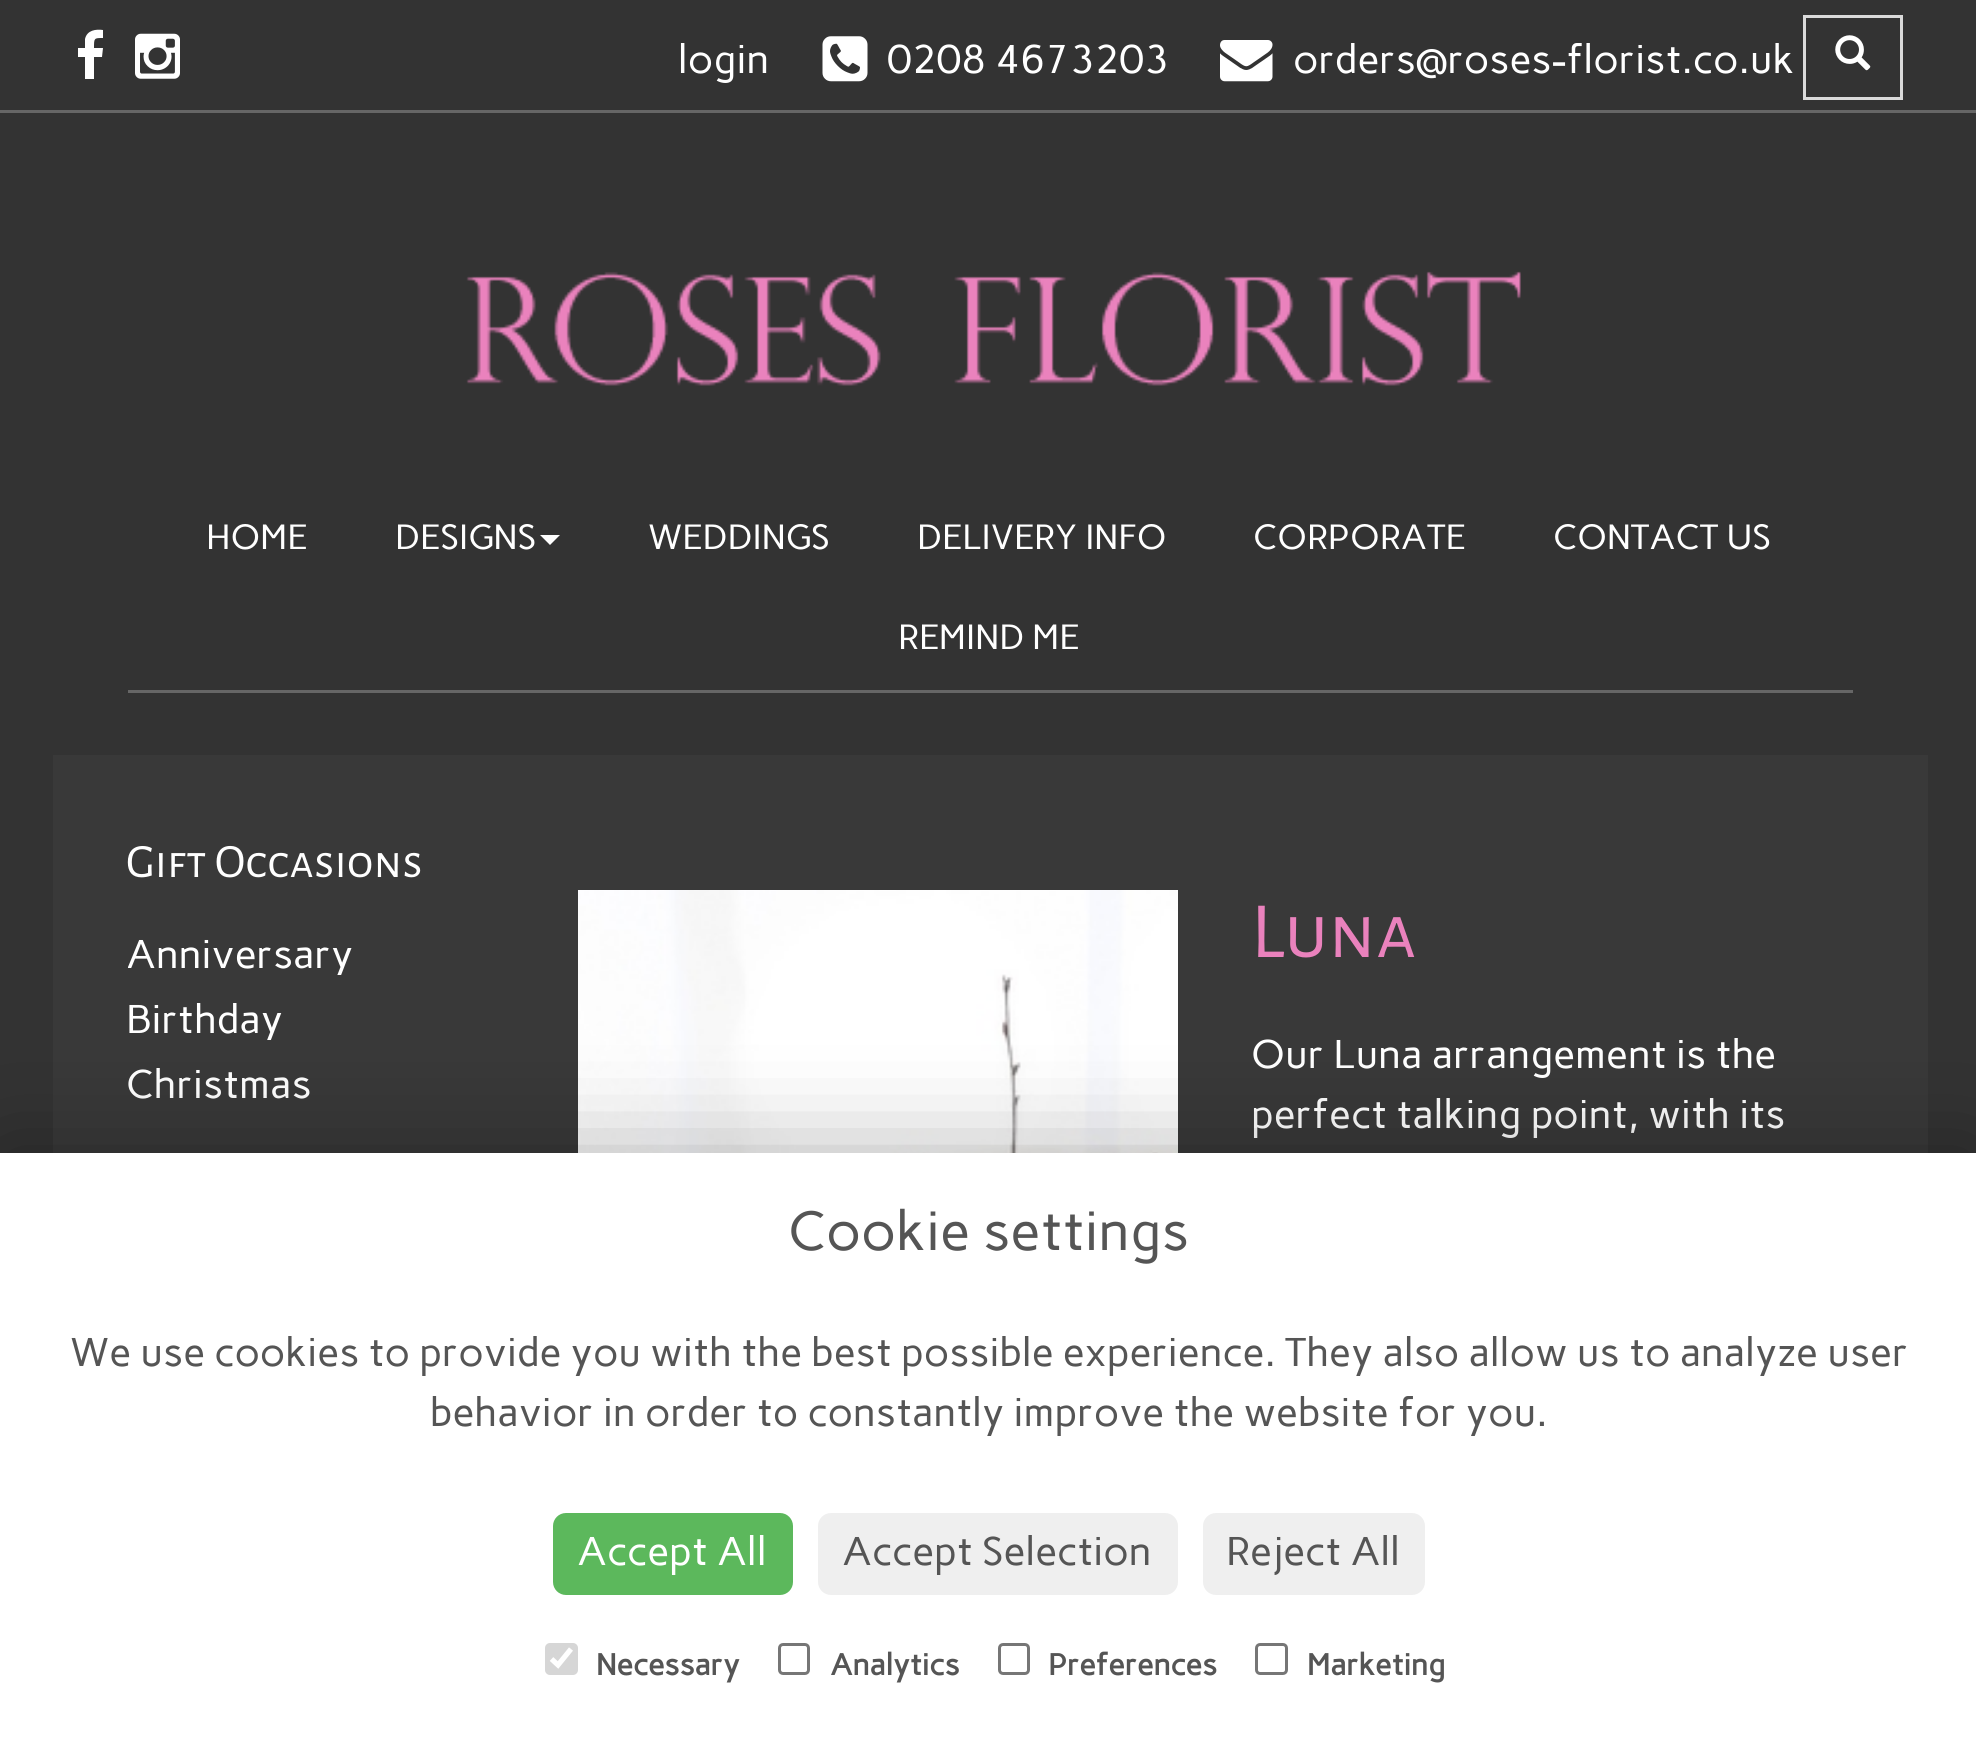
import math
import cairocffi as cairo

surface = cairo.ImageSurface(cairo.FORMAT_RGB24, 1976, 1750)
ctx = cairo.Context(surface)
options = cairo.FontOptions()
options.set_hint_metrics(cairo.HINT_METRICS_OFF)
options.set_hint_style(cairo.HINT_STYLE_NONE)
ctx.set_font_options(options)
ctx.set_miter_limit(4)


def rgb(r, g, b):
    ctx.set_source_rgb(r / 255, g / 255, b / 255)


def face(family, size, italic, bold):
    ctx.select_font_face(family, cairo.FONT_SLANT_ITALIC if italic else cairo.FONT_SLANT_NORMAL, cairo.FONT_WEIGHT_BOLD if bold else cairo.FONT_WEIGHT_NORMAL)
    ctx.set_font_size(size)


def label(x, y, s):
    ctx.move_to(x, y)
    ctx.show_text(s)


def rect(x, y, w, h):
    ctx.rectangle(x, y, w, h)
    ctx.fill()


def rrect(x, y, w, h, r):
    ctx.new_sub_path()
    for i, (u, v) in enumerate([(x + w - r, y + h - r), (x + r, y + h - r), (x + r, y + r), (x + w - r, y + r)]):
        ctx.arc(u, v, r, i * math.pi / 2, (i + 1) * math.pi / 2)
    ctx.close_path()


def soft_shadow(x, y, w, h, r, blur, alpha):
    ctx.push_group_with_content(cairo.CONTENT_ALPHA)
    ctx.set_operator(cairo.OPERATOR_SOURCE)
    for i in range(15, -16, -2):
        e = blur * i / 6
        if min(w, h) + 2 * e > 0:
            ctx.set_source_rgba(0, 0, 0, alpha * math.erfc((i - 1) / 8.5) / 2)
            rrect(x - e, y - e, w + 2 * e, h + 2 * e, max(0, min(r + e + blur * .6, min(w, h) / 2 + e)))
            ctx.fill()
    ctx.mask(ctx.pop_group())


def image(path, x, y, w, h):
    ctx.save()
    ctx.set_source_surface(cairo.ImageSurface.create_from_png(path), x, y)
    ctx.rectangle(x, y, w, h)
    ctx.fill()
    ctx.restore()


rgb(51, 51, 51)
ctx.paint()
rgb(102, 102, 102)
rect(0, 110, 1976, 3)
rgb(255, 255, 255)
ctx.new_path()
ctx.move_to(103, 30)
ctx.line_to(103, 38)
ctx.curve_to(94, 38, 94, 38, 94, 48)
ctx.line_to(103, 48)
ctx.line_to(102, 57)
ctx.line_to(94, 57)
ctx.line_to(94, 79)
ctx.line_to(85, 79)
ctx.line_to(85, 57)
ctx.line_to(78, 57)
ctx.line_to(78, 48)
ctx.line_to(85, 48)
ctx.line_to(85, 39)
ctx.curve_to(87, 30, 96, 29, 103, 30)
ctx.close_path()
ctx.fill()
image('image0.png', 135, 33, 45, 46)
face('Carme', 40, 0, 0)
label(678, 73, 'login')
image('image1.png', 822, 36, 46, 46)
label(887, 73, '0208 4673203')
image('image2.png', 1220, 40, 53, 42)
label(1293, 73, 'orders@roses-florist.co.uk')
ctx.rectangle(1804.5, 16.5, 97, 82)
rgb(218, 218, 218)
ctx.set_line_width(3)
ctx.stroke()
image('image3.png', 1835, 35, 36, 36)
image('image4.png', 466, 271, 1055, 115)
rgb(102, 102, 102)
rect(128, 690, 1725, 3)
face('Carme', 35, 0, 0)
rgb(255, 255, 255)
label(206, 549, 'HOME')
label(395, 549, 'DESIGNS')
ctx.new_path()
ctx.move_to(540, 535)
ctx.line_to(560, 535)
ctx.line_to(550, 545)
ctx.close_path()
ctx.fill()
label(648, 549, 'WEDDINGS')
label(917, 549, 'DELIVERY INFO')
label(1253, 549, 'CORPORATE')
label(1553, 549, 'CONTACT US')
label(898, 649, 'REMIND ME')
rgb(57, 57, 57)
rect(53, 755, 1875, 398)
face('Alegreya Sans SC', 48, 0, 0)
rgb(255, 255, 255)
label(126, 877, 'Gift Occasions')
ctx.save()
ctx.rectangle(128, 935, 412, 40)
ctx.clip()
face('Carme', 40, 0, 0)
label(126, 968, 'Anniversary')
ctx.restore()
ctx.save()
ctx.rectangle(128, 1000, 412, 40)
ctx.clip()
face('Carme', 40, 0, 0)
label(126, 1033, 'Birthday')
ctx.restore()
face('Carme', 40, 0, 0)
label(126, 1098, 'Christmas')
image('image5.png', 578, 890, 600, 263)
face('Alegreya Sans SC', 80, 0, 0)
rgb(234, 130, 189)
label(1251, 957, 'Luna')
face('Carme', 40, 0, 0)
rgb(255, 255, 255)
label(1251, 1068, 'Our Luna arrangement is the')
label(1251, 1128, 'perfect talking point, with its')
rgb(0, 0, 0)
soft_shadow(0, 1153, 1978, 597, 0, 50, 0.31)
rgb(255, 255, 255)
rect(0, 1153, 1976, 597)
face('Carme', 55, 0, 0)
rgb(85, 85, 85)
label(788, 1250, 'Cookie settings')
face('Carme', 40, 0, 0)
label(70, 1366, 'We use cookies to provide you with the best possible experience. They also allow us to analyze user')
label(430, 1426, 'behavior in order to constantly improve the website for you.')
rgb(92, 184, 92)
rrect(553, 1513, 240, 82, 13)
ctx.fill()
rgb(255, 255, 255)
label(577, 1565, 'Accept All')
rgb(239, 239, 239)
rrect(818, 1513, 360, 82, 13)
ctx.fill()
rgb(85, 85, 85)
label(842, 1565, 'Accept Selection')
rgb(239, 239, 239)
rrect(1203, 1513, 222, 82, 13)
ctx.fill()
rgb(85, 85, 85)
label(1226, 1565, 'Reject All')
rgb(214, 214, 214)
rrect(545, 1643, 33, 32, 5)
ctx.fill()
ctx.new_path()
ctx.move_to(551.5, 1659)
ctx.line_to(558, 1665)
ctx.line_to(571, 1649)
rgb(255, 255, 255)
ctx.set_line_width(5.2)
ctx.stroke()
face('Carme', 30, 0, 1)
rgb(85, 85, 85)
label(596, 1675, 'Necessary')
rrect(779.5, 1644.5, 29, 29, 3.5)
rgb(118, 118, 118)
ctx.set_line_width(3)
ctx.stroke()
rgb(85, 85, 85)
label(830, 1675, 'Analytics')
rrect(999.5, 1644.5, 29, 29, 3.5)
rgb(118, 118, 118)
ctx.stroke()
rgb(85, 85, 85)
label(1048, 1675, 'Preferences')
rrect(1256.5, 1644.5, 30, 29, 3.5)
rgb(118, 118, 118)
ctx.stroke()
rgb(85, 85, 85)
label(1307, 1675, 'Marketing')
surface.write_to_png('render.png')
